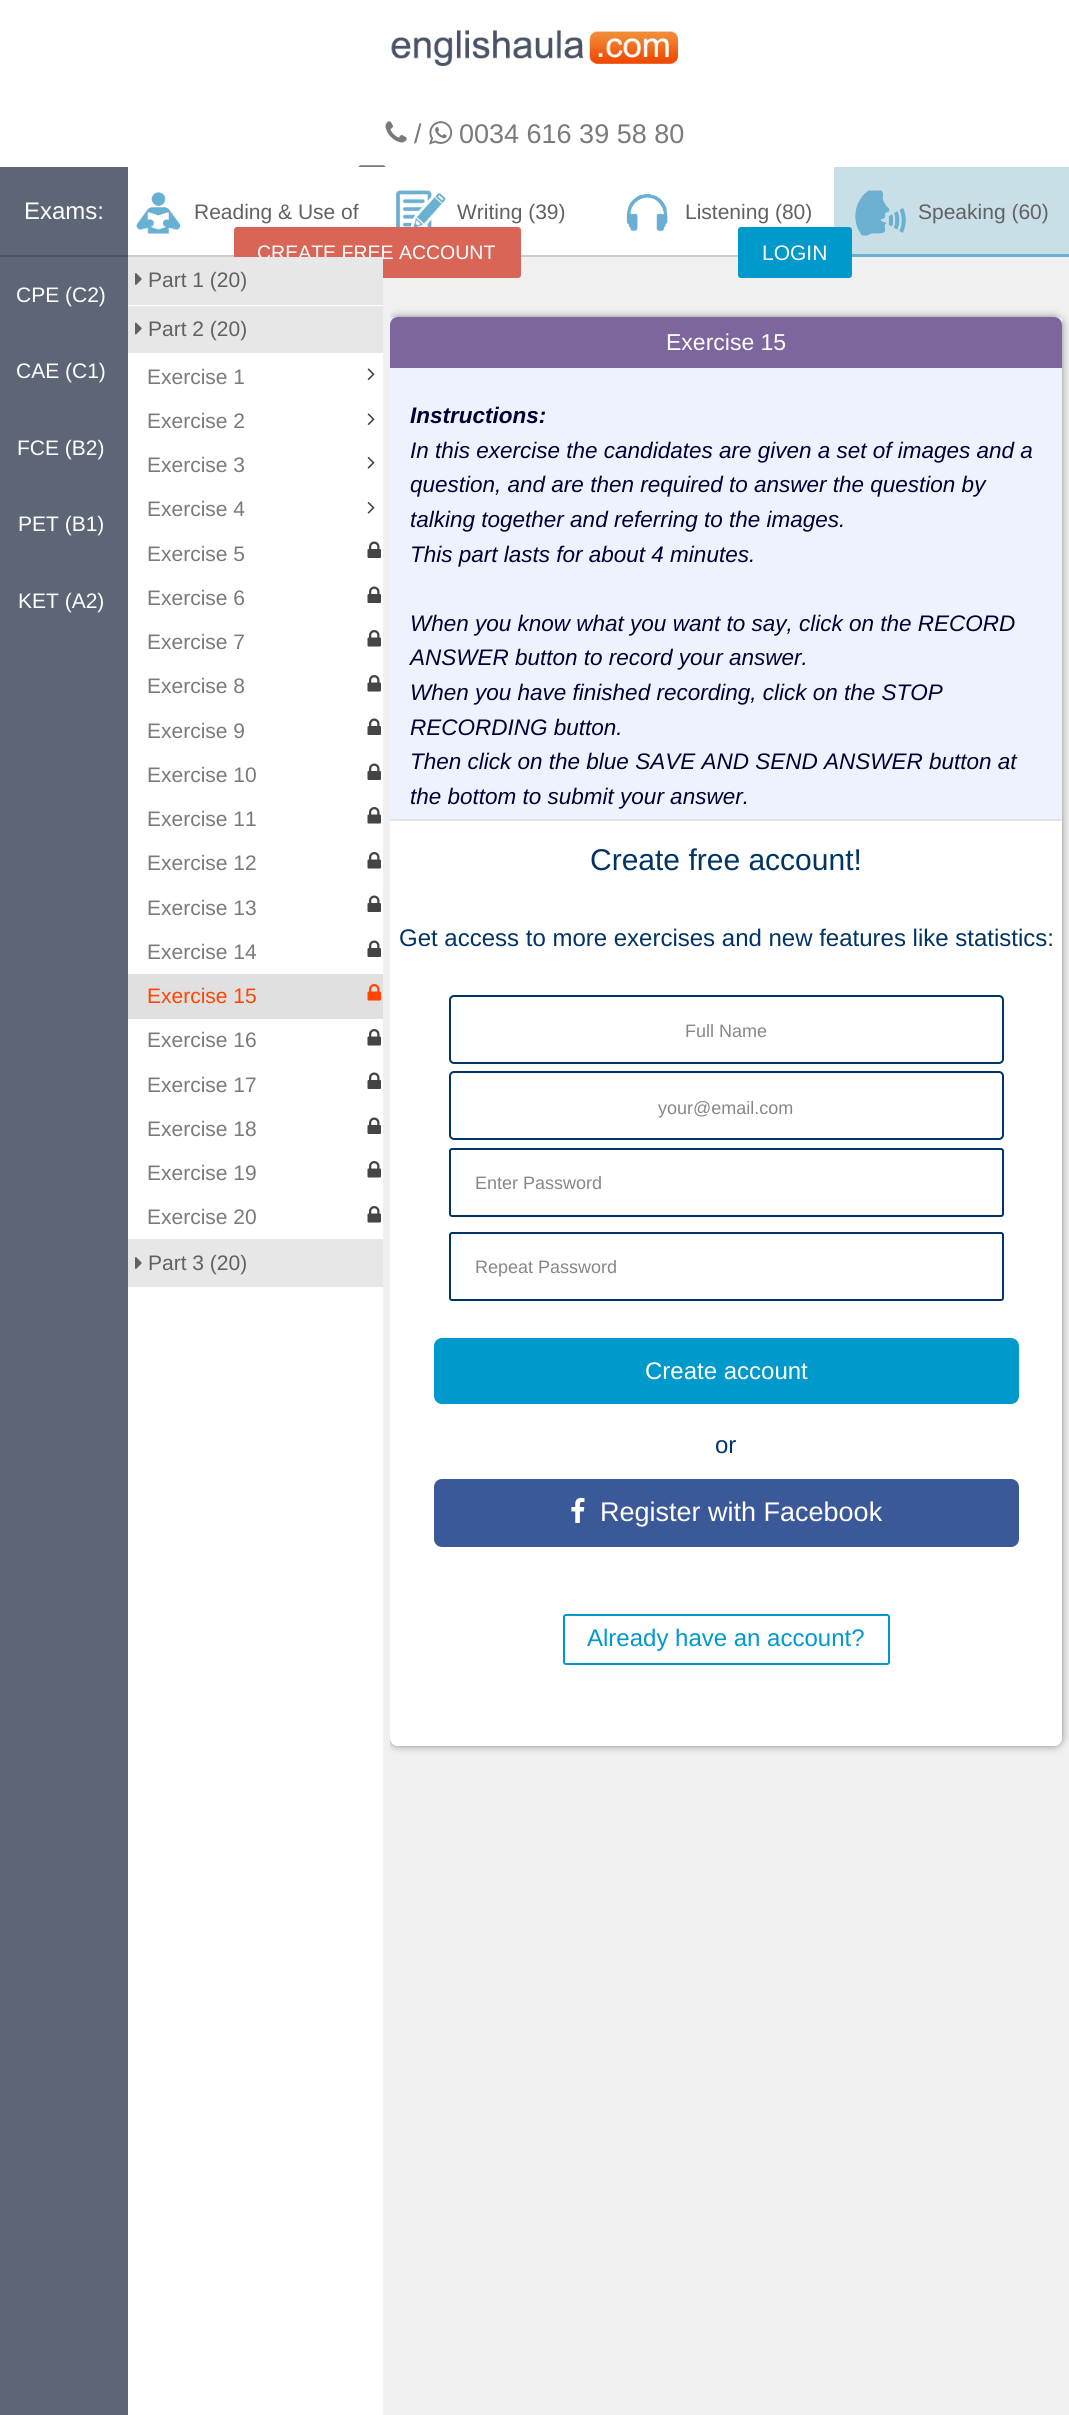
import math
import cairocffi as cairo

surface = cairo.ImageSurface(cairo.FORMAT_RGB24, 1069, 2415)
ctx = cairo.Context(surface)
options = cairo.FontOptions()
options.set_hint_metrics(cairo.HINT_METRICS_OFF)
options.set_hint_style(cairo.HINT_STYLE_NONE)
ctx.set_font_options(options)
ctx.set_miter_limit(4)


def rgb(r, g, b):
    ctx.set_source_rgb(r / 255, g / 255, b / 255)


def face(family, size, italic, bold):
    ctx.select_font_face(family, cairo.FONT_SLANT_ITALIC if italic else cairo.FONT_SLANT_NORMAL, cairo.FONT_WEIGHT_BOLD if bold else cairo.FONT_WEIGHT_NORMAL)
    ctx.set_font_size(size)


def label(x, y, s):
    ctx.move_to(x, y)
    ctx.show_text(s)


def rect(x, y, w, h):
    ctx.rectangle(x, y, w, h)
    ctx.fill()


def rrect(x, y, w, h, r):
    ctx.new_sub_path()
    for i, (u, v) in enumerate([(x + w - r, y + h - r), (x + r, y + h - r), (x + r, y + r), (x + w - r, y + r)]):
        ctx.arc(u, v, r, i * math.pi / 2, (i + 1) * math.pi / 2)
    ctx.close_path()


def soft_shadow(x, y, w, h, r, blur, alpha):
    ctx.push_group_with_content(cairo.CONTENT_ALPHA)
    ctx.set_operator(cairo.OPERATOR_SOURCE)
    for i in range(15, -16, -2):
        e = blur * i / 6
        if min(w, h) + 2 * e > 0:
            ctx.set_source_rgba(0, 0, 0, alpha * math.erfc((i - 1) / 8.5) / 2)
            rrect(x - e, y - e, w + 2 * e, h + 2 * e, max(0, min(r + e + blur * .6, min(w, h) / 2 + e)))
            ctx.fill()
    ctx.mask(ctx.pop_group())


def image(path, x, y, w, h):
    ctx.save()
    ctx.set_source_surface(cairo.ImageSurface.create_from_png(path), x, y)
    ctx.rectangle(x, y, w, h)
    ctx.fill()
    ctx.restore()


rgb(255, 255, 255)
ctx.paint()
image('image0.png', 391, 30, 287, 36)
image('image1.png', 385, 121, 22, 22)
face('Liberation Sans', 27, 0, 0)
rgb(122, 122, 122)
label(414, 143, '/')
image('image2.png', 429, 121, 24, 24)
label(459, 143, '0034 616 39 58 80')
image('image3.png', 358, 165, 28, 2)
rgb(204, 204, 204)
rect(128, 255, 610, 2)
rgb(240, 240, 240)
rect(383, 257, 686, 2158)
rgb(217, 101, 87)
rrect(235, 228, 285, 49, 2)
ctx.fill_preserve()
ctx.stroke()
face('Liberation Sans', 19.5, 0, 0)
rgb(255, 255, 255)
label(257, 259, 'CREATE FREE ACCOUNT')
rgb(201, 223, 232)
rect(834, 167, 235, 87)
rgb(0, 153, 204)
rrect(739, 228, 112, 49, 2)
ctx.fill_preserve()
ctx.stroke()
face('Liberation Sans', 21, 0, 0)
rgb(255, 255, 255)
label(762, 260, 'LOGIN')
rgb(92, 102, 119)
rect(0, 167, 128, 2248)
rgb(73, 84, 105)
rect(0, 255, 128, 2)
face('Liberation Sans', 24, 0, 0)
rgb(255, 255, 255)
label(24, 219, 'Exams:')
face('Liberation Sans', 21, 0, 0)
label(16, 302, 'CPE (C2)')
label(16, 378, 'CAE (C1)')
label(17, 455, 'FCE (B2)')
label(18, 531, 'PET (B1)')
label(18, 608, 'KET (A2)')
image('image4.png', 136, 192, 45, 42)
rgb(97, 97, 97)
label(194, 219, 'Reading & Use of')
image('image5.png', 396, 190, 50, 37)
label(457, 219, 'Writing (39)')
image('image6.png', 626, 194, 42, 37)
label(685, 219, 'Listening (80)')
rgb(107, 176, 209)
rect(852, 254, 217, 3)
image('image7.png', 855, 190, 51, 46)
rgb(97, 97, 97)
label(918, 219, 'Speaking (60)')
ctx.save()
ctx.rectangle(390, 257, 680, 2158)
ctx.clip()
rgb(136, 136, 136)
soft_shadow(390, 317, 672, 1429, 8, 4, 1)
ctx.restore()
rgb(231, 231, 231)
rect(128, 257, 255, 48)
image('image8.png', 135, 273, 7, 12)
rgb(97, 97, 97)
label(148, 287, 'Part 1 (20)')
rgb(231, 231, 231)
rect(128, 306, 255, 47)
image('image9.png', 135, 322, 7, 13)
rgb(97, 97, 97)
label(148, 336, 'Part 2 (20)')
rgb(122, 122, 122)
label(147, 384, 'Exercise 1')
image('image10.png', 367, 368, 8, 12)
label(147, 428, 'Exercise 2')
image('image10.png', 367, 413, 8, 12)
label(147, 472, 'Exercise 3')
image('image11.png', 367, 457, 8, 12)
label(147, 516, 'Exercise 4')
image('image11.png', 367, 502, 8, 12)
label(147, 561, 'Exercise 5')
image('image12.png', 367, 541, 14, 17)
label(147, 605, 'Exercise 6')
image('image12.png', 367, 586, 14, 17)
label(147, 649, 'Exercise 7')
image('image13.png', 367, 630, 14, 17)
label(147, 693, 'Exercise 8')
image('image13.png', 367, 675, 14, 17)
label(147, 738, 'Exercise 9')
image('image12.png', 367, 718, 14, 17)
label(147, 782, 'Exercise 10')
image('image12.png', 367, 763, 14, 17)
label(147, 826, 'Exercise 11')
image('image13.png', 367, 807, 14, 17)
label(147, 870, 'Exercise 12')
image('image13.png', 367, 852, 14, 17)
label(147, 915, 'Exercise 13')
image('image12.png', 367, 895, 14, 17)
label(147, 959, 'Exercise 14')
image('image12.png', 367, 940, 14, 17)
rgb(224, 224, 224)
rect(128, 974, 255, 45)
rgb(255, 69, 0)
label(147, 1003, 'Exercise 15')
image('image14.png', 367, 984, 14, 17)
rgb(122, 122, 122)
label(147, 1047, 'Exercise 16')
image('image13.png', 367, 1029, 14, 17)
label(147, 1092, 'Exercise 17')
image('image12.png', 367, 1072, 14, 17)
label(147, 1136, 'Exercise 18')
image('image12.png', 367, 1117, 14, 17)
label(147, 1180, 'Exercise 19')
image('image13.png', 367, 1161, 14, 17)
label(147, 1224, 'Exercise 20')
image('image13.png', 367, 1206, 14, 17)
rgb(231, 231, 231)
rect(128, 1239, 255, 48)
image('image8.png', 135, 1257, 7, 12)
rgb(97, 97, 97)
label(148, 1270, 'Part 3 (20)')
rgb(255, 255, 255)
rrect(390, 317, 672, 1429, 8)
ctx.fill()
rgb(238, 242, 254)
rect(390, 319, 672, 500)
rgb(225, 229, 240)
rect(390, 317, 672, 2)
rgb(125, 102, 158)
ctx.new_path()
ctx.move_to(398, 317)
ctx.line_to(1054, 317)
ctx.curve_to(1058.5, 317, 1062, 320.5, 1062, 325)
ctx.line_to(1062, 368)
ctx.line_to(390, 368)
ctx.line_to(390, 325)
ctx.curve_to(390, 320.5, 393.5, 317, 398, 317)
ctx.close_path()
ctx.fill()
face('Liberation Sans', 23, 0, 0)
rgb(255, 255, 255)
label(666, 350, 'Exercise 15')
rgb(225, 229, 240)
rect(390, 819, 672, 2)
face('Liberation Sans', 22.5, 1, 1)
rgb(0, 0, 51)
label(410, 423, 'Instructions:')
face('Liberation Sans', 22.5, 1, 0)
label(410, 458, 'In this exercise the candidates are given a set of images and a')
label(410, 492, 'question, and are then required to answer the question by')
label(410, 527, 'talking together and referring to the images.')
label(410, 562, 'This part lasts for about 4 minutes.')
label(410, 631, 'When you know what you want to say, click on the RECORD')
label(410, 665, 'ANSWER button to record your answer.')
label(410, 700, 'When you have finished recording, click on the STOP')
label(410, 735, 'RECORDING button.')
label(410, 769, 'Then click on the blue SAVE AND SEND ANSWER button at')
label(410, 804, 'the bottom to submit your answer.')
face('Liberation Sans', 30, 0, 0)
rgb(0, 51, 102)
label(590, 870, 'Create free account!')
face('Liberation Sans', 24, 0, 0)
label(399, 946, 'Get access to more exercises and new features like statistics:')
rrect(450, 996, 553, 67, 4)
ctx.stroke()
face('Liberation Sans', 18, 0, 0)
rgb(135, 135, 135)
label(685, 1037, 'Full Name')
rrect(450, 1072, 553, 67, 4)
rgb(0, 51, 102)
ctx.stroke()
rgb(135, 135, 135)
label(658, 1114, 'your@email.com')
rrect(450, 1149, 553, 67, 2)
rgb(0, 51, 102)
ctx.stroke()
rgb(135, 135, 135)
label(475, 1189, 'Enter Password')
rrect(450, 1233, 553, 67, 2)
rgb(0, 51, 102)
ctx.stroke()
rgb(135, 135, 135)
label(475, 1273, 'Repeat Password')
rgb(0, 153, 204)
rrect(435, 1339, 583, 64, 7)
ctx.fill_preserve()
ctx.stroke()
face('Liberation Sans', 24, 0, 0)
rgb(255, 255, 255)
label(645, 1379, 'Create account')
rgb(0, 51, 102)
label(715, 1453, 'or')
rgb(59, 89, 152)
rrect(435, 1480, 583, 66, 7)
ctx.fill_preserve()
ctx.stroke()
image('image15.png', 571, 1497, 14, 26)
face('Liberation Sans', 27, 0, 0)
rgb(255, 255, 255)
label(600, 1521, 'Register with Facebook')
rrect(564, 1615, 325, 49, 2)
rgb(0, 153, 204)
ctx.stroke()
face('Liberation Sans', 24, 0, 0)
label(587, 1646, 'Already have an account?')
surface.write_to_png('render.png')
